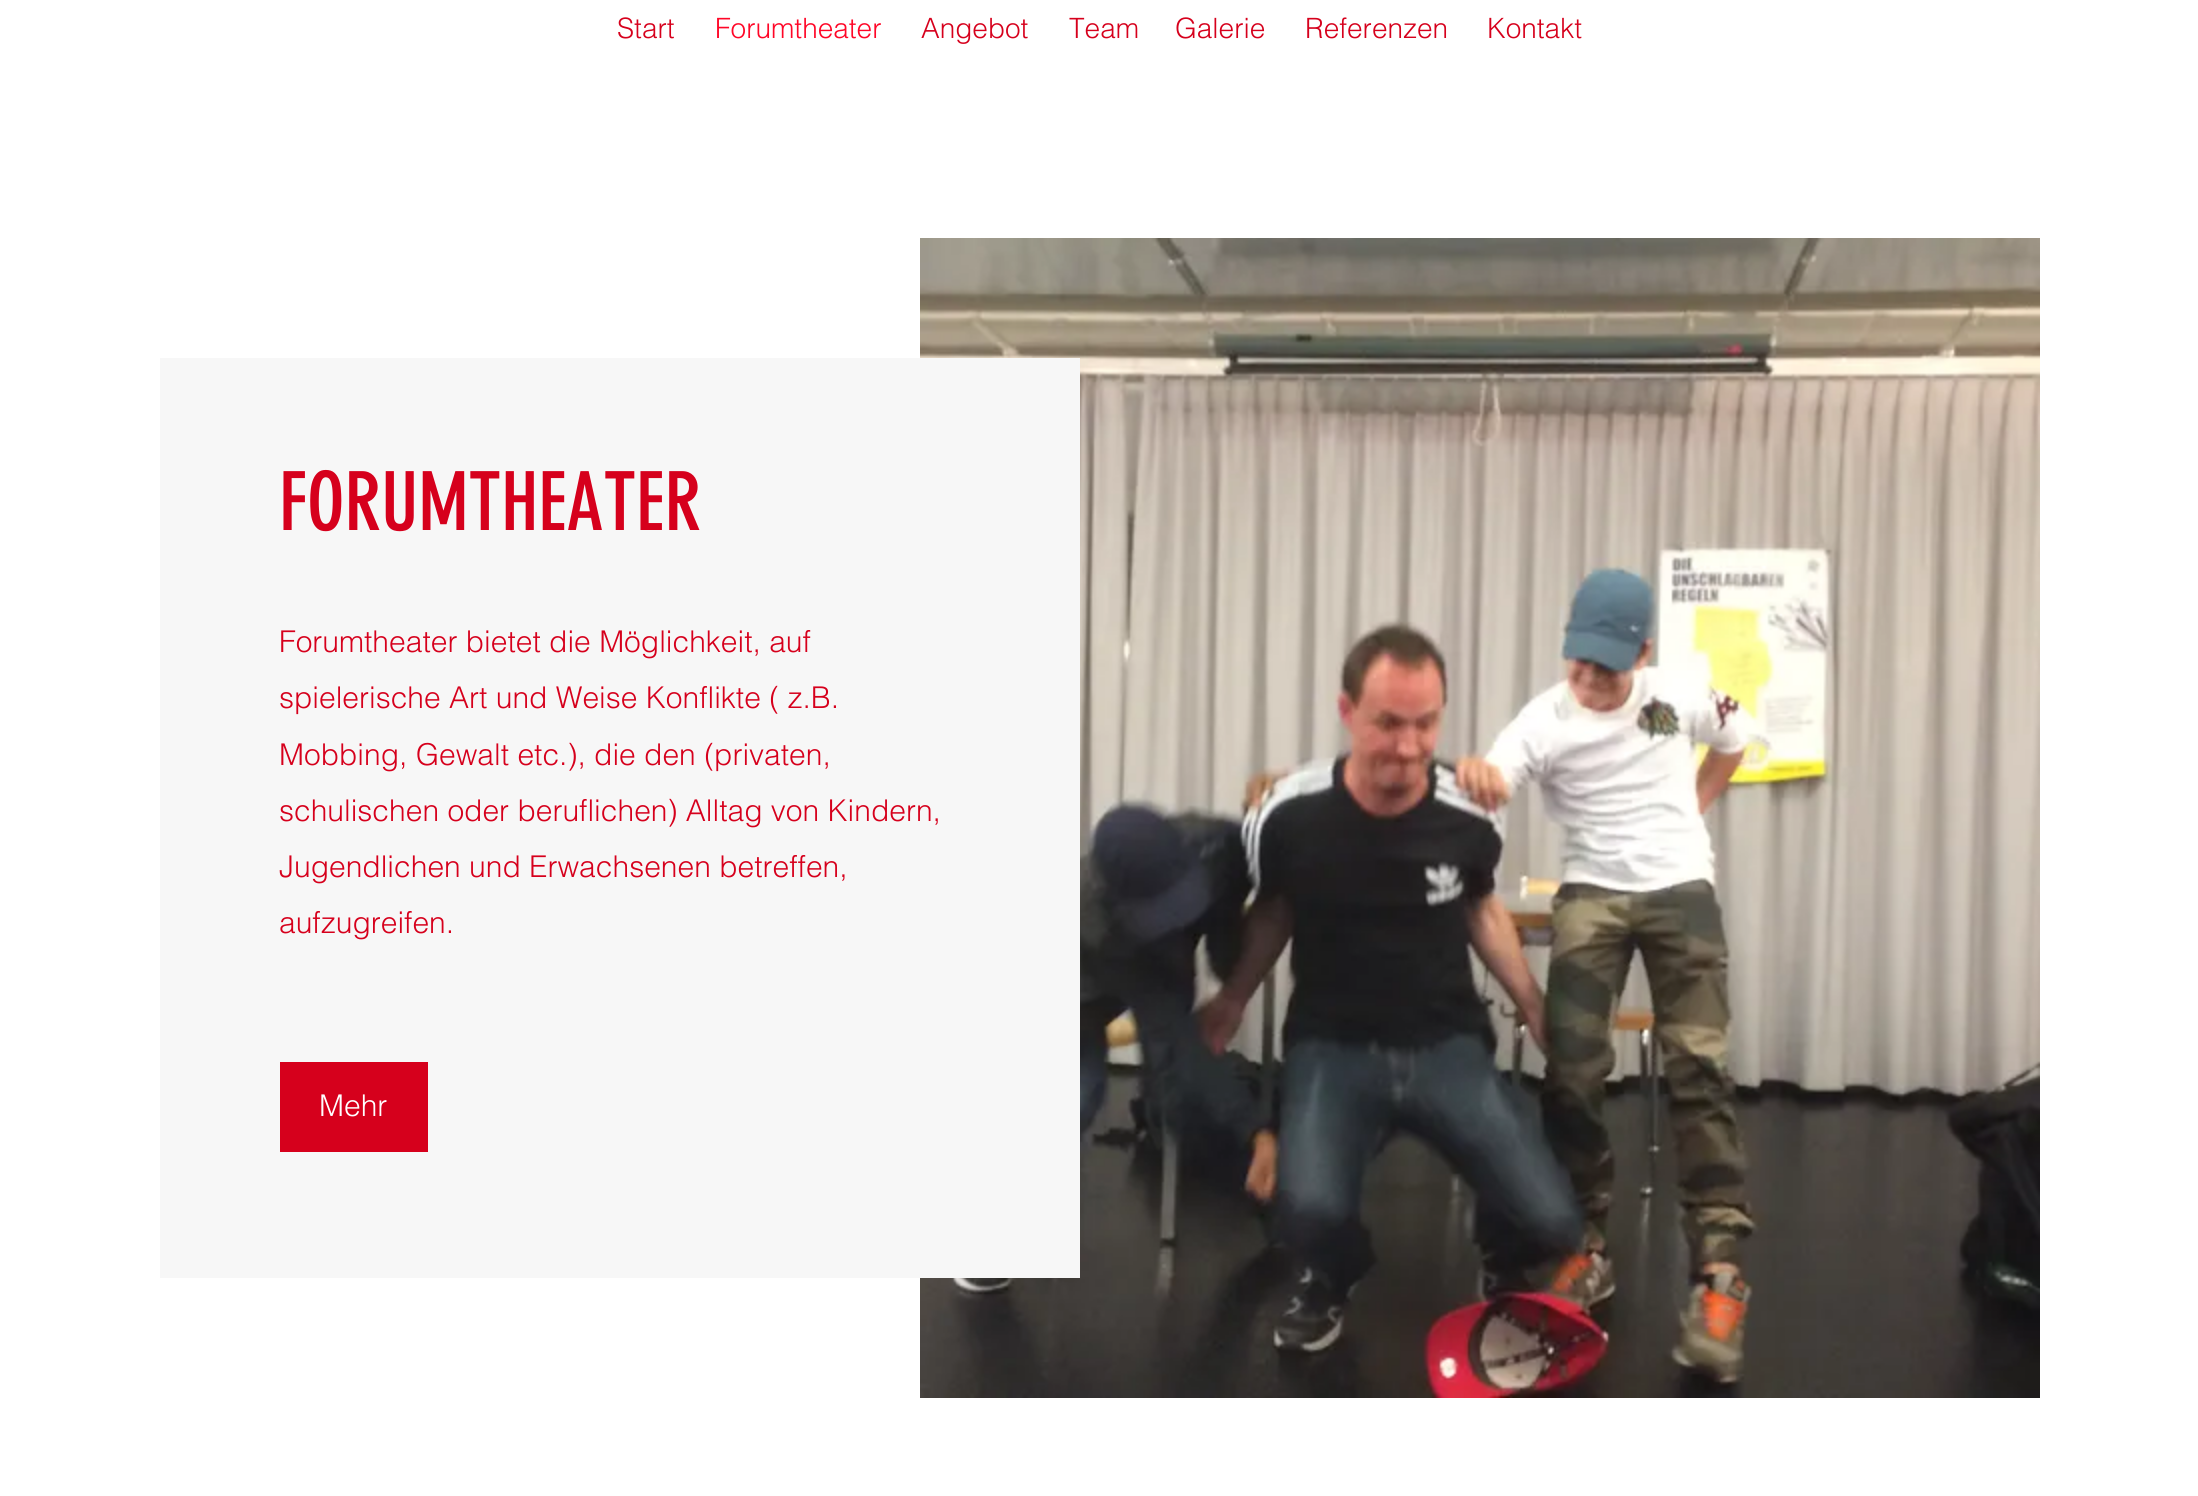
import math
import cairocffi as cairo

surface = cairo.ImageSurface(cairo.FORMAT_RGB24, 2198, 1496)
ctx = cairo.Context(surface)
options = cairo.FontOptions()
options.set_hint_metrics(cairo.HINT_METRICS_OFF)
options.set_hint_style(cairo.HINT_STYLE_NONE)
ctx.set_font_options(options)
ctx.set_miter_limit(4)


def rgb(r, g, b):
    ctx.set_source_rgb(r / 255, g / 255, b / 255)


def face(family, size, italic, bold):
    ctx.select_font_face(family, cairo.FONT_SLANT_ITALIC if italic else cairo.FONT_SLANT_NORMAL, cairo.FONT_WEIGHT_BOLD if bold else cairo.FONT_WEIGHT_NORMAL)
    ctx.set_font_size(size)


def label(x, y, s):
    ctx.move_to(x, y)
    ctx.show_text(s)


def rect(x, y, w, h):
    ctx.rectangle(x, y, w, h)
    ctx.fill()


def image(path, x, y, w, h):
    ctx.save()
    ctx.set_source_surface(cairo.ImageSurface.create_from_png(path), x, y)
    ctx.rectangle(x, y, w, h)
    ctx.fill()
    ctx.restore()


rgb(255, 255, 255)
ctx.paint()
face('helvetica Light', 28, 0, 0)
rgb(214, 0, 28)
label(617, 38, 'Start')
rgb(255, 6, 39)
label(715, 38, 'Forumtheater')
rgb(214, 0, 28)
label(921, 38, 'Angebot')
label(1069, 38, 'Team')
label(1175, 38, 'Galerie')
label(1305, 38, 'Referenzen')
label(1487, 38, 'Kontakt')
image('image0.png', 920, 238, 1120, 1160)
rgb(247, 247, 247)
rect(160, 358, 920, 920)
face('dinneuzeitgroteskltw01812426', 80, 0, 0)
rgb(214, 0, 28)
label(279, 530, 'FORUMTHEATER')
face('helvetica Light', 30, 0, 0)
label(279, 652, 'Forumtheater bietet die Möglichkeit, auf')
label(279, 708, 'spielerische Art und Weise Konflikte ( z.B.')
label(279, 765, 'Mobbing, Gewalt etc.), die den (privaten,')
label(279, 821, 'schulischen oder beruflichen) Alltag von Kindern,')
label(279, 877, 'Jugendlichen und Erwachsenen betreffen,')
label(279, 933, 'aufzugreifen.')
rect(280, 1062, 148, 90)
rgb(255, 255, 255)
label(319, 1116, 'Mehr')
surface.write_to_png('render.png')
